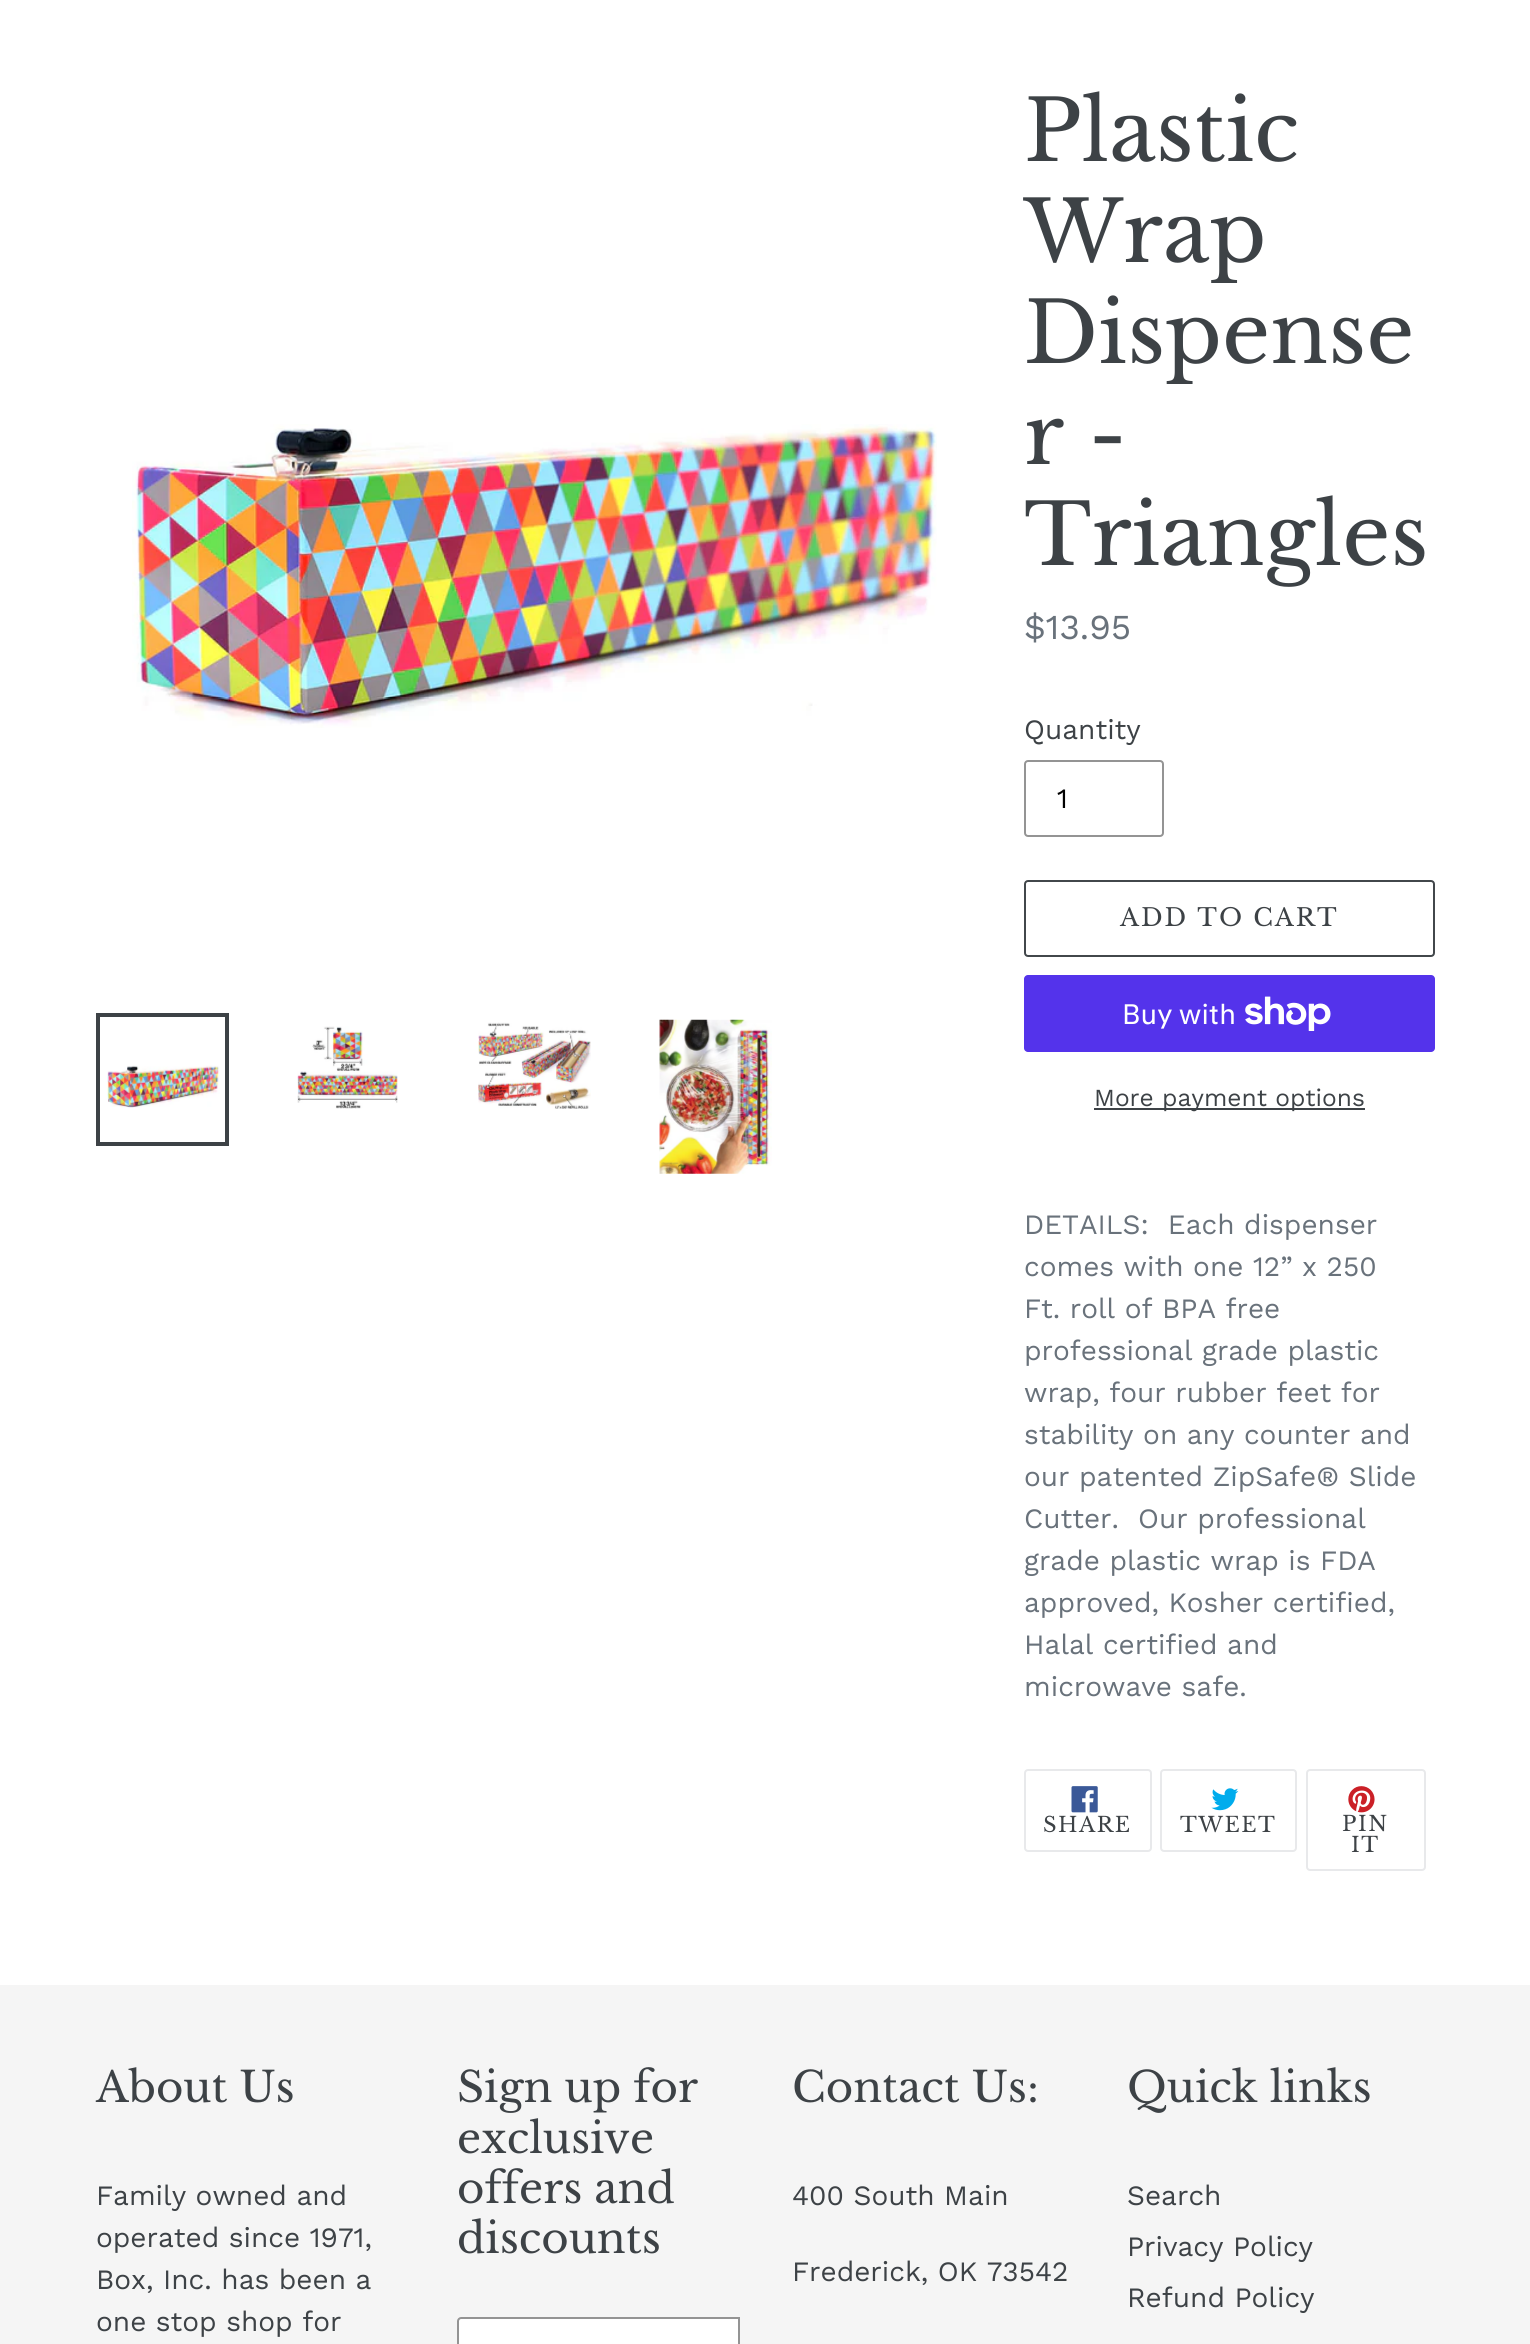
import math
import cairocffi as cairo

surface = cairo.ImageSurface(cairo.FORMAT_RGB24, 1530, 2344)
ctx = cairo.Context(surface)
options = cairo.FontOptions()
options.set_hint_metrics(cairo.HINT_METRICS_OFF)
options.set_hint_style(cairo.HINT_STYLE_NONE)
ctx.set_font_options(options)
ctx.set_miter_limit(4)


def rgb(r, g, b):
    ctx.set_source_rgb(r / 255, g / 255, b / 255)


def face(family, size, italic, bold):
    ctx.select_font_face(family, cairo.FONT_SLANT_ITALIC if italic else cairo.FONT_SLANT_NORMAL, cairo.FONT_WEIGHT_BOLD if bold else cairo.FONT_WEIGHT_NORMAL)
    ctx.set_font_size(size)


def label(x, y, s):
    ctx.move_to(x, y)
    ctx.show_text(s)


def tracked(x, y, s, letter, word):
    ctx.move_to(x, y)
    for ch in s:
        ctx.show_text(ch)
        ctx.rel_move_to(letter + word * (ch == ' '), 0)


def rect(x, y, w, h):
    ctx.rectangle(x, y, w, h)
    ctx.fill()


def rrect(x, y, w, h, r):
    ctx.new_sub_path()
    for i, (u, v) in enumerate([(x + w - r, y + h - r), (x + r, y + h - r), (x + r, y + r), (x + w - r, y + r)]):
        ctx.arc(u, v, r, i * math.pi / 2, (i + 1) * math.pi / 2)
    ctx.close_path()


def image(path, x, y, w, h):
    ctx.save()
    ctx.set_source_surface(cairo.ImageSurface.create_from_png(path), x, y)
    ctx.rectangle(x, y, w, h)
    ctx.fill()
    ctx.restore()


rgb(255, 255, 255)
ctx.paint()
image('image0.png', 132, 424, 805, 304)
ctx.rectangle(98, 1015, 129, 129)
rgb(61, 66, 70)
ctx.set_line_width(4)
ctx.stroke()
image('image1.png', 107, 1065, 113, 43)
image('image2.png', 297, 1026, 101, 83)
image('image3.png', 478, 1022, 113, 87)
image('image4.png', 659, 1019, 113, 155)
face('Libre Baskerville', 84, 0, 0)
label(1024, 161, 'Plastic')
label(1024, 262, 'Wrap')
label(1024, 363, 'Dispense')
label(1024, 464, 'r -')
label(1024, 565, 'Triangles')
face('Work Sans', 35, 0, 0)
rgb(105, 114, 123)
label(1024, 639, '$13.95')
face('Work Sans', 28, 0, 0)
rgb(61, 66, 70)
label(1024, 739, 'Quantity')
rrect(1025, 761, 138, 75, 3)
rgb(148, 148, 148)
ctx.set_line_width(2)
ctx.stroke()
rgb(0, 0, 0)
label(1057, 808, '1')
rrect(1025, 881, 409, 75, 3)
rgb(66, 71, 75)
ctx.stroke()
face('Libre Baskerville', 24.5, 0, 0)
rgb(61, 66, 70)
tracked(1120, 926, 'ADD TO CART', 2, 0)
rgb(84, 51, 235)
rrect(1024, 975, 411, 77, 4)
ctx.fill()
face('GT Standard', 28, 0, 0)
rgb(255, 255, 255)
label(1122, 1024, 'Buy with')
image('image5.png', 1245, 996, 86, 35)
rgb(61, 66, 70)
rect(1094, 1108, 271, 2)
face('Work Sans', 24.5, 0, 0)
label(1094, 1106, 'More payment options')
face('Work Sans', 28, 0, 0)
rgb(105, 114, 123)
label(1024, 1234, 'DETAILS:  Each dispenser')
label(1024, 1276, 'comes with one 12” x 250')
label(1024, 1318, 'Ft. roll of BPA free')
label(1024, 1360, 'professional grade plastic')
label(1024, 1402, 'wrap, four rubber feet for')
label(1024, 1444, 'stability on any counter and')
label(1024, 1486, 'our patented ZipSafe® Slide')
label(1024, 1528, 'Cutter.  Our professional')
label(1024, 1570, 'grade plastic wrap is FDA')
label(1024, 1612, 'approved, Kosher certified,')
label(1024, 1654, 'Halal certified and')
label(1024, 1696, 'microwave safe.')
rrect(1025, 1770, 126, 81, 3)
rgb(232, 233, 235)
ctx.stroke()
image('image6.png', 1071, 1786, 27, 27)
face('Libre Baskerville', 21, 0, 0)
rgb(61, 66, 70)
tracked(1043, 1832, 'SHARE', 1.5, 0)
rrect(1161, 1770, 135, 81, 3)
rgb(232, 233, 235)
ctx.stroke()
image('image7.png', 1211, 1788, 28, 23)
rgb(61, 66, 70)
tracked(1180, 1832, 'TWEET', 1.5, 0)
rrect(1307, 1770, 118, 100, 3)
rgb(232, 233, 235)
ctx.stroke()
image('image8.png', 1348, 1786, 27, 27)
rgb(61, 66, 70)
tracked(1342, 1831, 'PIN', 1.5, 0)
tracked(1351, 1852, 'IT', 1.5, 0)
rgb(245, 245, 245)
rect(0, 1985, 1530, 359)
face('Libre Baskerville', 42, 0, 0)
rgb(61, 66, 70)
label(96, 2102, 'About Us')
face('Work Sans', 28, 0, 0)
label(96, 2205, 'Family owned and')
label(96, 2247, 'operated since 1971,')
label(96, 2289, 'Box, Inc. has been a')
label(96, 2331, 'one stop shop for')
face('Libre Baskerville', 42, 0, 0)
label(457, 2102, 'Sign up for')
label(457, 2153, 'exclusive')
label(457, 2203, 'offers and')
label(457, 2253, 'discounts')
rgb(255, 255, 255)
ctx.new_path()
ctx.move_to(461, 2318)
ctx.line_to(739, 2318)
ctx.line_to(739, 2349)
ctx.line_to(461, 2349)
ctx.curve_to(459.5, 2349, 458, 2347.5, 458, 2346)
ctx.line_to(458, 2321)
ctx.curve_to(458, 2319.5, 459.5, 2318, 461, 2318)
ctx.close_path()
ctx.fill_preserve()
rgb(148, 148, 148)
ctx.stroke()
rgb(61, 66, 70)
label(792, 2102, 'Contact Us:')
face('Work Sans', 28, 0, 0)
label(792, 2205, '400 South Main')
label(792, 2281, 'Frederick, OK 73542')
face('Libre Baskerville', 42, 0, 0)
label(1127, 2102, 'Quick links')
face('Work Sans', 28, 0, 0)
label(1127, 2205, 'Search')
label(1127, 2256, 'Privacy Policy')
label(1127, 2307, 'Refund Policy')
surface.write_to_png('render.png')
